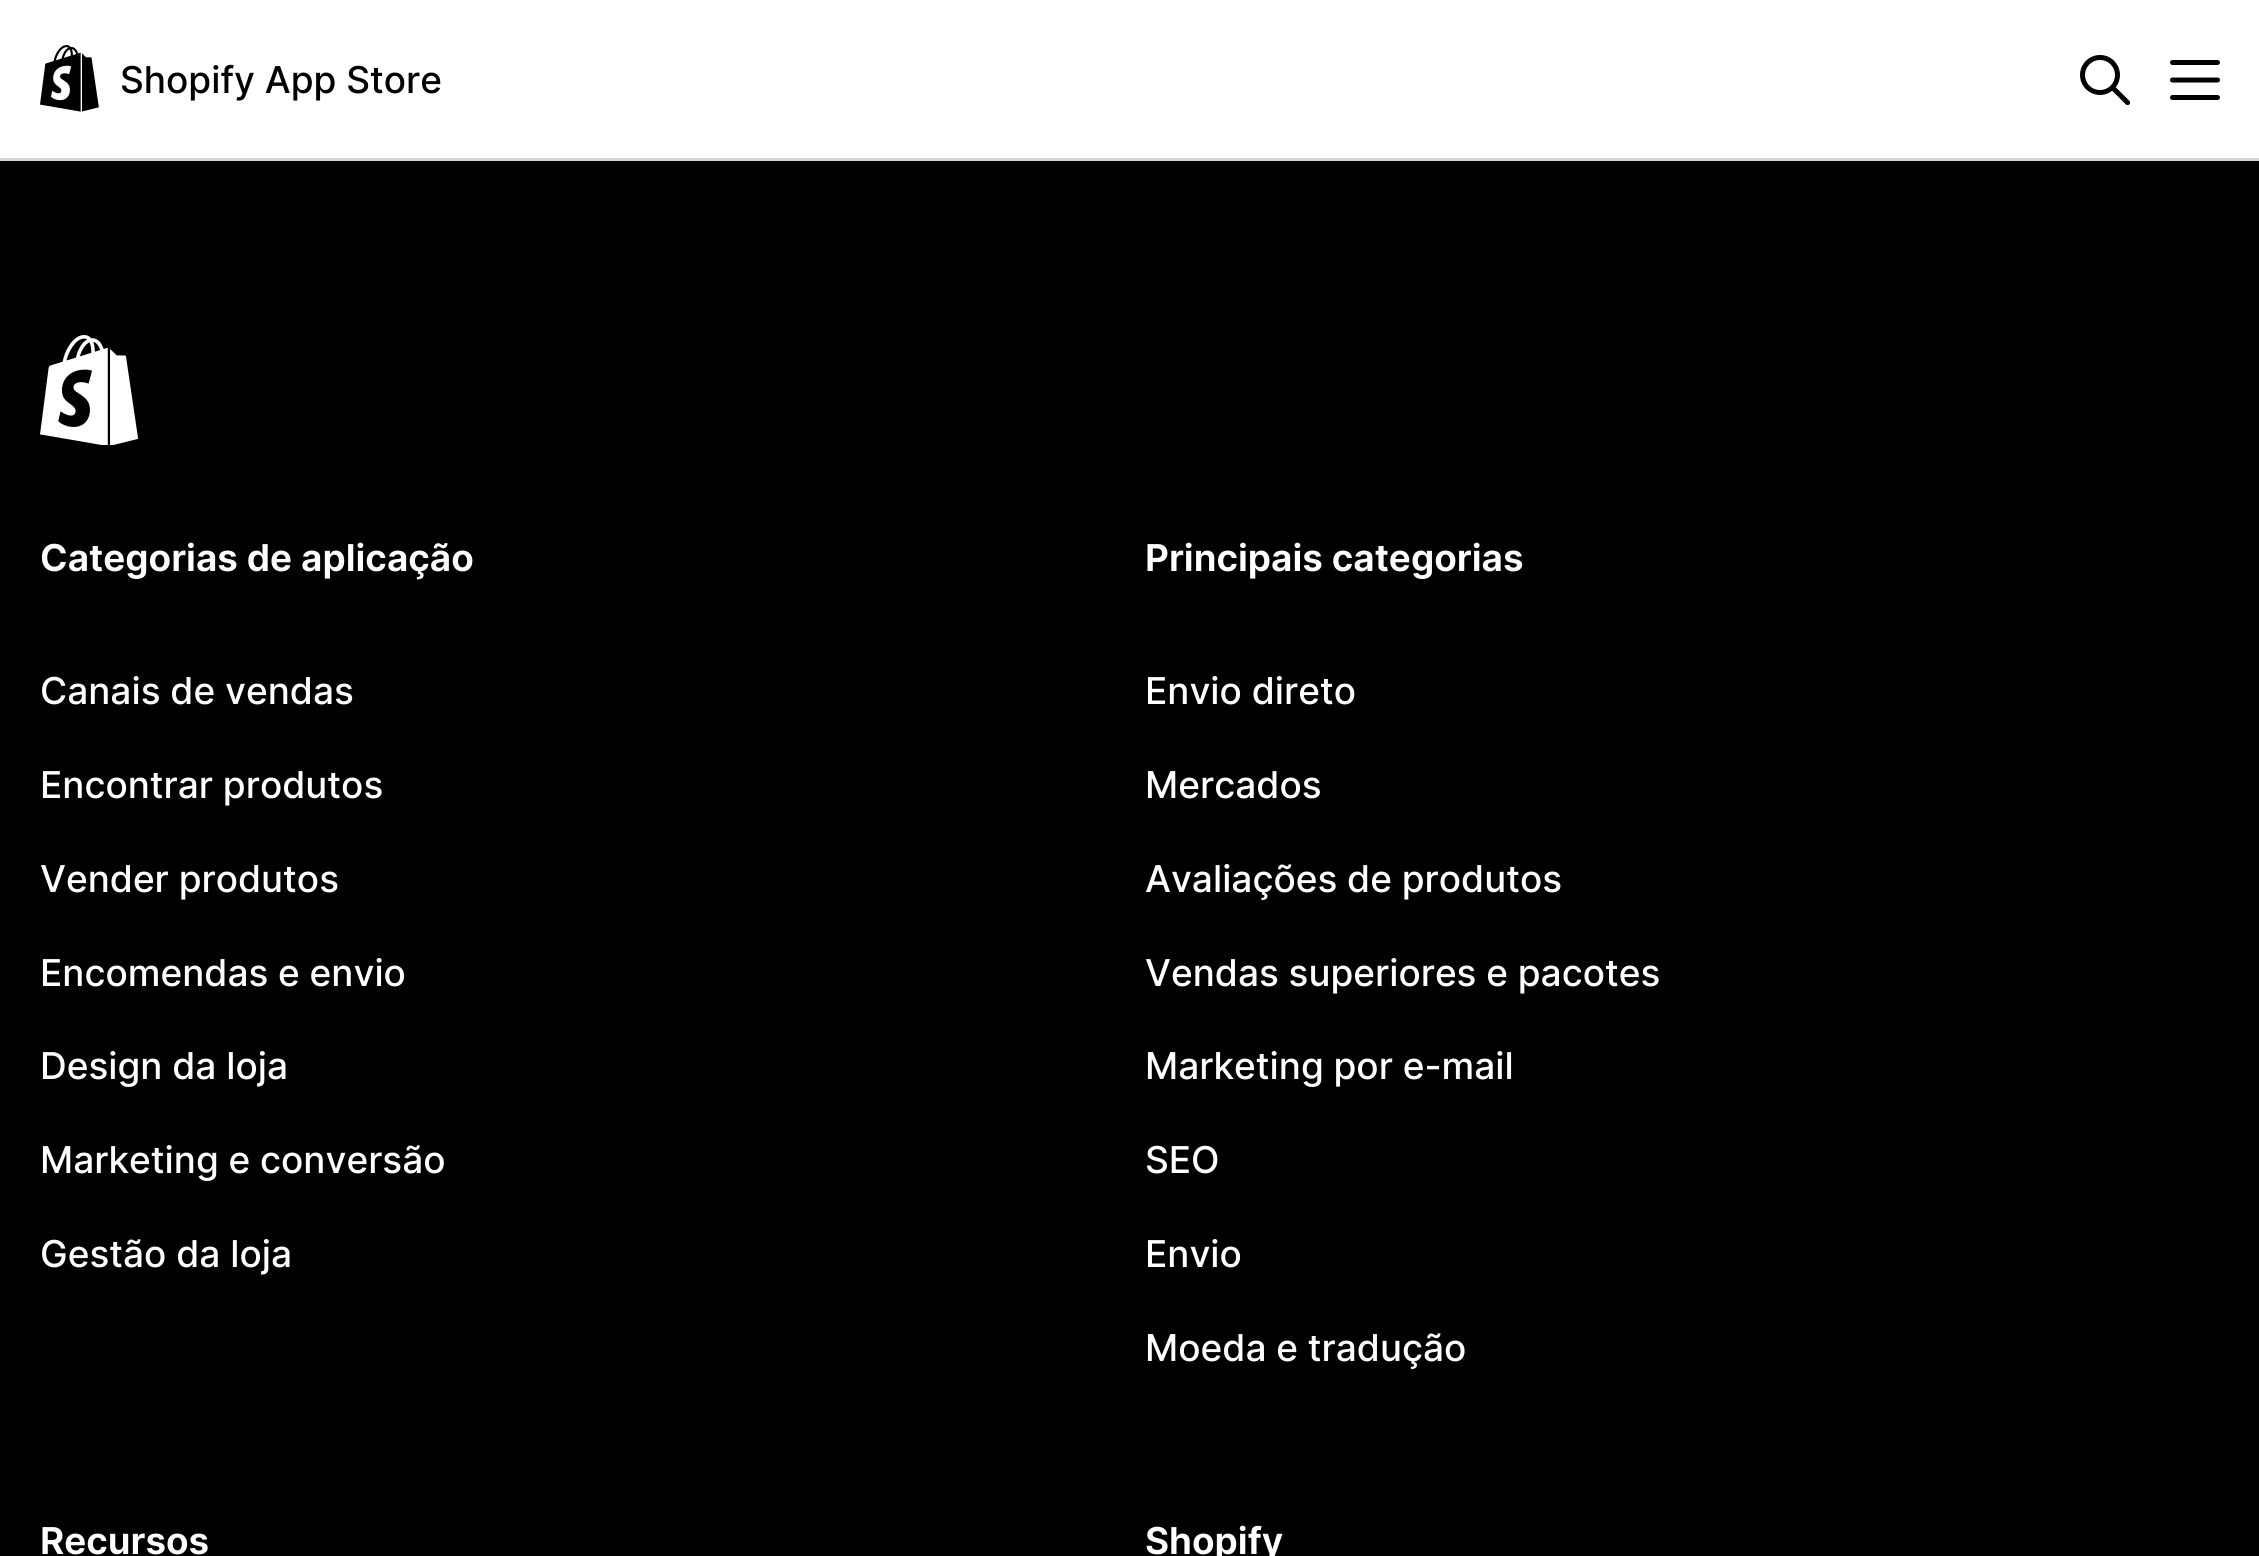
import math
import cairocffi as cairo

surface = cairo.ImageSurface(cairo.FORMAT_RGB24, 2259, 1556)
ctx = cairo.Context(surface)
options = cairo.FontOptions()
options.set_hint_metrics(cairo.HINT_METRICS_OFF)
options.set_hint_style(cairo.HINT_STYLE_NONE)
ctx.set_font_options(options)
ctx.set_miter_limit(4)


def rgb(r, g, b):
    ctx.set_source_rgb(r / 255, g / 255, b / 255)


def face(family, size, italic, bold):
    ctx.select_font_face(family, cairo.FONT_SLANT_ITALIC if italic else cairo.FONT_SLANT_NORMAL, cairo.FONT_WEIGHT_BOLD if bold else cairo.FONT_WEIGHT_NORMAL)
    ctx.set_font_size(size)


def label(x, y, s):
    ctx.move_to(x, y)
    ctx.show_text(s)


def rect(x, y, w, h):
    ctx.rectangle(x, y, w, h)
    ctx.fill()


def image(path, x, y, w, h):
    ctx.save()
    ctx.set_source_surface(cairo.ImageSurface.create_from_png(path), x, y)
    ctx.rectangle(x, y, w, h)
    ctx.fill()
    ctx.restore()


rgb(0, 0, 0)
ctx.paint()
rgb(255, 255, 255)
rect(0, 0, 2259, 158)
rgb(214, 211, 209)
rect(0, 158, 2259, 3)
image('image0.png', 40, 45, 59, 67)
face('Inter Medium', 37, 0, 0)
rgb(0, 0, 0)
label(120, 93, 'Shopify App Store')
image('image1.png', 2080, 55, 50, 50)
image('image2.png', 2170, 60, 50, 40)
image('image3.png', 40, 335, 99, 110)
face('Inter SemiBold', 37, 0, 0)
rgb(255, 255, 255)
label(40, 571, 'Categorias de aplicação')
face('Inter Medium', 37, 0, 0)
label(40, 704, 'Canais de vendas')
label(40, 798, 'Encontrar produtos')
label(40, 892, 'Vender produtos')
label(40, 986, 'Encomendas e envio')
label(40, 1079, 'Design da loja')
label(40, 1173, 'Marketing e conversão')
label(40, 1267, 'Gestão da loja')
face('Inter SemiBold', 37, 0, 0)
label(1145, 571, 'Principais categorias')
face('Inter Medium', 37, 0, 0)
label(1145, 704, 'Envio direto')
label(1145, 798, 'Mercados')
label(1145, 892, 'Avaliações de produtos')
label(1145, 986, 'Vendas superiores e pacotes')
label(1145, 1079, 'Marketing por e-mail')
label(1145, 1173, 'SEO')
label(1145, 1267, 'Envio')
label(1145, 1361, 'Moeda e tradução')
face('Inter SemiBold', 37, 0, 0)
label(40, 1554, 'Recursos')
label(1145, 1554, 'Shopify')
surface.write_to_png('render.png')
